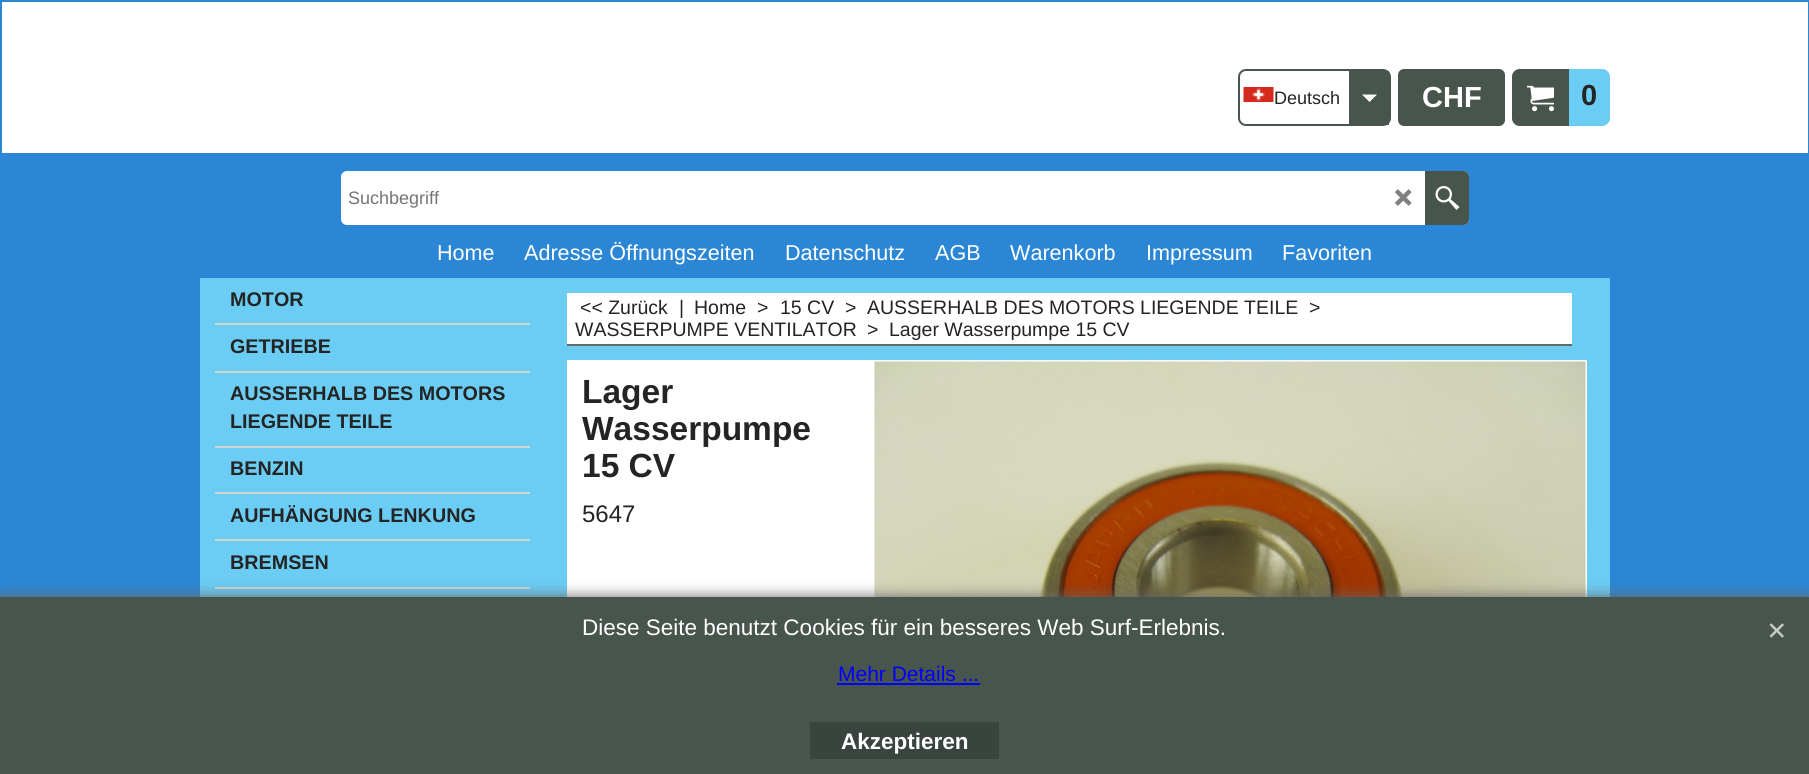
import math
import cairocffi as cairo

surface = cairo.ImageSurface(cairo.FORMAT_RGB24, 1809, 774)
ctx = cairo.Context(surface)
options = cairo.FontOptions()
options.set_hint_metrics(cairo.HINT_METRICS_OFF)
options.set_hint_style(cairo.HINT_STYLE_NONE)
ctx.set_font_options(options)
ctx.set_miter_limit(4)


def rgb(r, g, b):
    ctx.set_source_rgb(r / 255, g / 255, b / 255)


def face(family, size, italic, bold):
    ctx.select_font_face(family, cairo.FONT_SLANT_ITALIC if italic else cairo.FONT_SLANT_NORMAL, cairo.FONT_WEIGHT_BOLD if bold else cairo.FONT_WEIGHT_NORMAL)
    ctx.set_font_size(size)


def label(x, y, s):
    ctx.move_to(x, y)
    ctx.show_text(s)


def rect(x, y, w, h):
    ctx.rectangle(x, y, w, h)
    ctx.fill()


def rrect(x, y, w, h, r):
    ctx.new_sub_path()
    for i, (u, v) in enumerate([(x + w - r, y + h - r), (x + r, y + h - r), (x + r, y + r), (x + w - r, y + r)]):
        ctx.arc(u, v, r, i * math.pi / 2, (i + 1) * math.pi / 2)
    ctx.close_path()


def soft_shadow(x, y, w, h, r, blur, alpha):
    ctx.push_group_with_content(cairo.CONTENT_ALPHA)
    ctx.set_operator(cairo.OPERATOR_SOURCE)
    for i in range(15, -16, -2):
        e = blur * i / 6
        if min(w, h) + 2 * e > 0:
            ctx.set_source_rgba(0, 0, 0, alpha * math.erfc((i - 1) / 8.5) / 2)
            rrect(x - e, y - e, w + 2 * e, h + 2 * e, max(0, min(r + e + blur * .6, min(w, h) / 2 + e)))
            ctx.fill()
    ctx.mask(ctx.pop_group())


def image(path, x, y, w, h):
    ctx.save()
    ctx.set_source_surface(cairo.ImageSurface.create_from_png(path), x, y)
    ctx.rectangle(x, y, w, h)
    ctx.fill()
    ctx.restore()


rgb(43, 135, 213)
ctx.paint()
rgb(255, 255, 255)
rect(2, 2, 1806, 151)
rrect(1239, 70, 151, 55, 7)
rgb(72, 85, 77)
ctx.stroke()
image('image0.png', 1243, 87, 31, 15)
face('Liberation Sans', 18, 0, 0)
rgb(36, 36, 36)
label(1274, 104, 'Deutsch')
rgb(72, 85, 77)
rect(1349, 71, 40, 54)
rgb(255, 255, 255)
ctx.new_path()
ctx.move_to(1362, 94.5)
ctx.line_to(1369.5, 102)
ctx.line_to(1377, 94.5)
ctx.close_path()
ctx.fill()
rgb(72, 85, 77)
rrect(1399, 70, 105, 55, 5)
ctx.fill_preserve()
ctx.stroke()
face('Liberation Sans', 29, 0, 1)
rgb(255, 255, 255)
label(1422, 107, 'CHF')
rgb(107, 205, 244)
rrect(1512, 69, 98, 57, 8)
ctx.fill()
rgb(72, 85, 77)
ctx.new_path()
ctx.move_to(1520, 70)
ctx.line_to(1568, 70)
ctx.line_to(1568, 125)
ctx.line_to(1520, 125)
ctx.curve_to(1516, 125, 1513, 122, 1513, 118)
ctx.line_to(1513, 77)
ctx.curve_to(1513, 73, 1516, 70, 1520, 70)
ctx.close_path()
ctx.fill_preserve()
ctx.stroke()
image('image1.png', 1527, 85, 27, 27)
rgb(36, 36, 36)
label(1581, 105, '0')
rgb(255, 255, 255)
rrect(341, 171, 1128, 54, 6)
ctx.fill()
face('Liberation Sans', 18, 0, 0)
rgb(117, 117, 117)
label(348, 204, 'Suchbegriff')
image('image2.png', 1395, 189, 17, 17)
rgb(72, 85, 77)
ctx.new_path()
ctx.move_to(1425, 171)
ctx.line_to(1463, 171)
ctx.curve_to(1466.5, 171, 1469, 173.5, 1469, 177)
ctx.line_to(1469, 219)
ctx.curve_to(1469, 222.5, 1466.5, 225, 1463, 225)
ctx.line_to(1425, 225)
ctx.close_path()
ctx.fill()
image('image3.png', 1435, 186, 25, 24)
face('Liberation Sans', 21.6, 0, 0)
rgb(255, 255, 255)
label(437, 260, 'Home')
label(524, 260, 'Adresse Öffnungszeiten')
label(785, 260, 'Datenschutz')
label(935, 260, 'AGB')
label(1010, 260, 'Warenkorb')
label(1146, 260, 'Impressum')
label(1282, 260, 'Favoriten')
rgb(107, 205, 244)
rect(200, 278, 1410, 319)
rgb(213, 213, 213)
rect(215, 323, 315, 2)
face('Liberation Sans', 19.75, 0, 1)
rgb(36, 36, 36)
label(230, 306, 'MOTOR')
rgb(213, 213, 213)
rect(215, 371, 315, 2)
rgb(36, 36, 36)
label(230, 353, 'GETRIEBE')
rgb(213, 213, 213)
rect(215, 446, 315, 2)
rgb(36, 36, 36)
label(230, 400, 'AUSSERHALB DES MOTORS')
label(230, 428, 'LIEGENDE TEILE')
rgb(213, 213, 213)
rect(215, 492, 315, 2)
rgb(36, 36, 36)
label(230, 475, 'BENZIN')
rgb(213, 213, 213)
rect(215, 539, 315, 2)
rgb(36, 36, 36)
label(230, 522, 'AUFHÄNGUNG LENKUNG')
rgb(213, 213, 213)
rect(215, 587, 315, 2)
rgb(36, 36, 36)
label(230, 569, 'BREMSEN')
rgb(255, 255, 255)
rect(567, 293, 1005, 51)
rgb(98, 109, 102)
rect(567, 344, 1005, 2)
face('Liberation Sans', 19.5, 0, 0)
rgb(36, 36, 36)
label(580, 314, '<< Zurück')
label(679, 314, '|')
label(694, 314, 'Home')
label(757, 314, '>')
label(780, 314, '15 CV')
label(845, 314, '>')
label(867, 314, 'AUSSERHALB DES MOTORS LIEGENDE TEILE')
label(1309, 314, '>')
label(575, 336, 'WASSERPUMPE VENTILATOR')
rgb(255, 255, 255)
rect(680, 318, 2, 1)
rgb(36, 36, 36)
label(867, 336, '>')
label(889, 336, 'Lager Wasserpumpe 15 CV')
rgb(255, 255, 255)
rect(567, 360, 1020, 237)
face('Liberation Sans', 33.5, 0, 1)
rgb(36, 36, 36)
label(582, 403, 'Lager')
label(582, 440, 'Wasserpumpe')
label(582, 477, '15 CV')
face('Liberation Sans', 24, 0, 0)
label(582, 522, '5647')
image('image4.png', 874, 361, 712, 236)
rgb(102, 102, 102)
soft_shadow(0, 597, 1809, 177, 0, 7.5, 1)
rgb(72, 85, 77)
rect(0, 597, 1809, 177)
face('Liberation Sans', 22.5, 0, 0)
rgb(255, 255, 255)
label(582, 635, 'Diese Seite benutzt Cookies für ein besseres Web Surf-Erlebnis.')
face('Liberation Sans', 21, 0, 0)
rgb(0, 0, 255)
label(838, 681, 'Mehr Details ...')
rect(837, 683, 143, 2)
image('image5.png', 1769, 623, 15, 15)
rgb(58, 68, 62)
rect(810, 722, 189, 37)
face('Liberation Sans', 22.5, 0, 1)
rgb(255, 255, 255)
label(841, 749, 'Akzeptieren')
surface.write_to_png('render.png')
